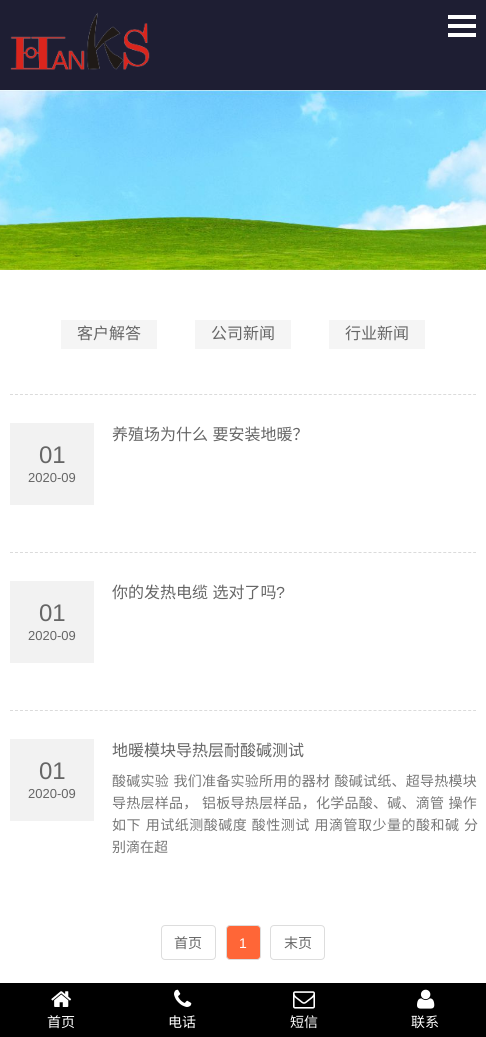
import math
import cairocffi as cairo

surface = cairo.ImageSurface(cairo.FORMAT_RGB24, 486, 1037)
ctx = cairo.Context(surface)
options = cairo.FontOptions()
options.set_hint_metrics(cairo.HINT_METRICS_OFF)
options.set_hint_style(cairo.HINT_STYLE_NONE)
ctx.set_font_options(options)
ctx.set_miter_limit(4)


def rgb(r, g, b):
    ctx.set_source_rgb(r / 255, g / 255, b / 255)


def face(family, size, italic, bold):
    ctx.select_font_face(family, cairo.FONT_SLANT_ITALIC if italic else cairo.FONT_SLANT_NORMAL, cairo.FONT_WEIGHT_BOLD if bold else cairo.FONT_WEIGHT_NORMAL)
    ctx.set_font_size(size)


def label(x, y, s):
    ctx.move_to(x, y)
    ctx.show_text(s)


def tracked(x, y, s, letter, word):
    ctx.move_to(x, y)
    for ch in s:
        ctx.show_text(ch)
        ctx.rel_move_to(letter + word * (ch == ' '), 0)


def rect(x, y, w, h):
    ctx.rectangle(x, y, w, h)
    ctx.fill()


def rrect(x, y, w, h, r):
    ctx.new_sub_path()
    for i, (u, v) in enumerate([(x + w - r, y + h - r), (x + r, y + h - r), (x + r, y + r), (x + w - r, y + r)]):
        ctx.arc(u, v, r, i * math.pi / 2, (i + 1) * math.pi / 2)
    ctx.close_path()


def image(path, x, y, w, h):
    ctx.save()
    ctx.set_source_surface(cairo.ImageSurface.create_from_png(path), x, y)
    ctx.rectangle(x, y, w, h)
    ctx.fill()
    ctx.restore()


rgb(255, 255, 255)
ctx.paint()
rgb(30, 30, 51)
rect(0, 0, 486, 90)
image('image0.png', 10, 12, 140, 58)
rgb(255, 255, 255)
rect(448, 24, 28, 4)
rect(448, 15, 28, 4)
rect(448, 33, 28, 4)
image('image1.png', 0, 90, 486, 180)
rgb(245, 245, 245)
rect(61, 320, 96, 29)
face('Noto Sans CJK SC', 16, 0, 0)
rgb(102, 102, 102)
label(77, 339, '客户解答')
rgb(245, 245, 245)
rect(195, 320, 96, 29)
rgb(102, 102, 102)
label(211, 339, '公司新闻')
rgb(245, 245, 245)
rect(329, 320, 96, 29)
rgb(102, 102, 102)
label(345, 339, '行业新闻')
ctx.new_path()
ctx.move_to(10, 394.5)
ctx.line_to(476, 394.5)
rgb(219, 219, 219)
ctx.set_line_width(1)
ctx.set_dash([3, 1.98])
ctx.stroke()
rgb(102, 102, 102)
tracked(112, 440, '养殖场为什么 要安装地暖？', 0, 1)
rgb(242, 242, 242)
rect(10, 423, 84, 82)
face('Liberation Sans', 24, 0, 0)
rgb(102, 102, 102)
label(39, 463, '01')
face('Liberation Sans', 13, 0, 0)
label(28, 482, '2020-09')
ctx.new_path()
ctx.move_to(10, 552.5)
ctx.line_to(476, 552.5)
rgb(219, 219, 219)
ctx.stroke()
face('Noto Sans CJK SC', 16, 0, 0)
rgb(102, 102, 102)
tracked(112, 598, '你的发热电缆 选对了吗', 0, 1)
face('Liberation Sans', 16, 0, 0)
label(276, 598, '?')
rgb(242, 242, 242)
rect(10, 581, 84, 82)
face('Liberation Sans', 24, 0, 0)
rgb(102, 102, 102)
label(39, 621, '01')
face('Liberation Sans', 13, 0, 0)
label(28, 640, '2020-09')
ctx.new_path()
ctx.move_to(10, 710.5)
ctx.line_to(476, 710.5)
rgb(219, 219, 219)
ctx.stroke()
rgb(242, 242, 242)
rect(10, 739, 84, 82)
face('Liberation Sans', 24, 0, 0)
rgb(102, 102, 102)
label(39, 779, '01')
face('Liberation Sans', 13, 0, 0)
label(28, 798, '2020-09')
face('Noto Sans CJK SC', 16, 0, 0)
label(112, 756, '地暖模块导热层耐酸碱测试')
face('Noto Sans CJK SC', 14, 0, 0)
rgb(119, 119, 119)
tracked(112, 786, '酸碱实验 我们准备实验所用的器材 酸碱试纸、超导热模块', 0.25, 1)
tracked(112, 808, '导热层样品， 铝板导热层样品，化学品酸、碱、滴管 操作', 0.25, 1)
tracked(112, 830, '如下 用试纸测酸碱度 酸性测试 用滴管取少量的酸和碱 分', 0.5, 1)
label(112, 852, '别滴在超')
rrect(161.5, 925.5, 54, 34, 3.5)
rgb(221, 221, 221)
ctx.set_dash([])
ctx.stroke()
rgb(102, 102, 102)
label(174, 948, '首页')
rgb(255, 102, 55)
rrect(226.5, 925.5, 34, 34, 3.5)
ctx.fill_preserve()
rgb(221, 221, 221)
ctx.stroke()
face('Liberation Sans', 14, 0, 0)
rgb(255, 255, 255)
label(239, 948, '1')
rrect(270.5, 925.5, 54, 34, 3.5)
rgb(221, 221, 221)
ctx.stroke()
face('Noto Sans CJK SC', 14, 0, 0)
rgb(102, 102, 102)
label(284, 948, '末页')
rgb(0, 0, 0)
rect(0, 983, 486, 54)
image('image2.png', 51, 991, 21, 16)
rgb(255, 255, 255)
label(47, 1027, '首页')
image('image3.png', 174, 989, 18, 18)
label(168, 1027, '电话')
image('image4.png', 293, 991, 22, 18)
label(290, 1027, '短信')
image('image5.png', 417, 989, 18, 20)
label(411, 1027, '联系')
surface.write_to_png('render.png')
